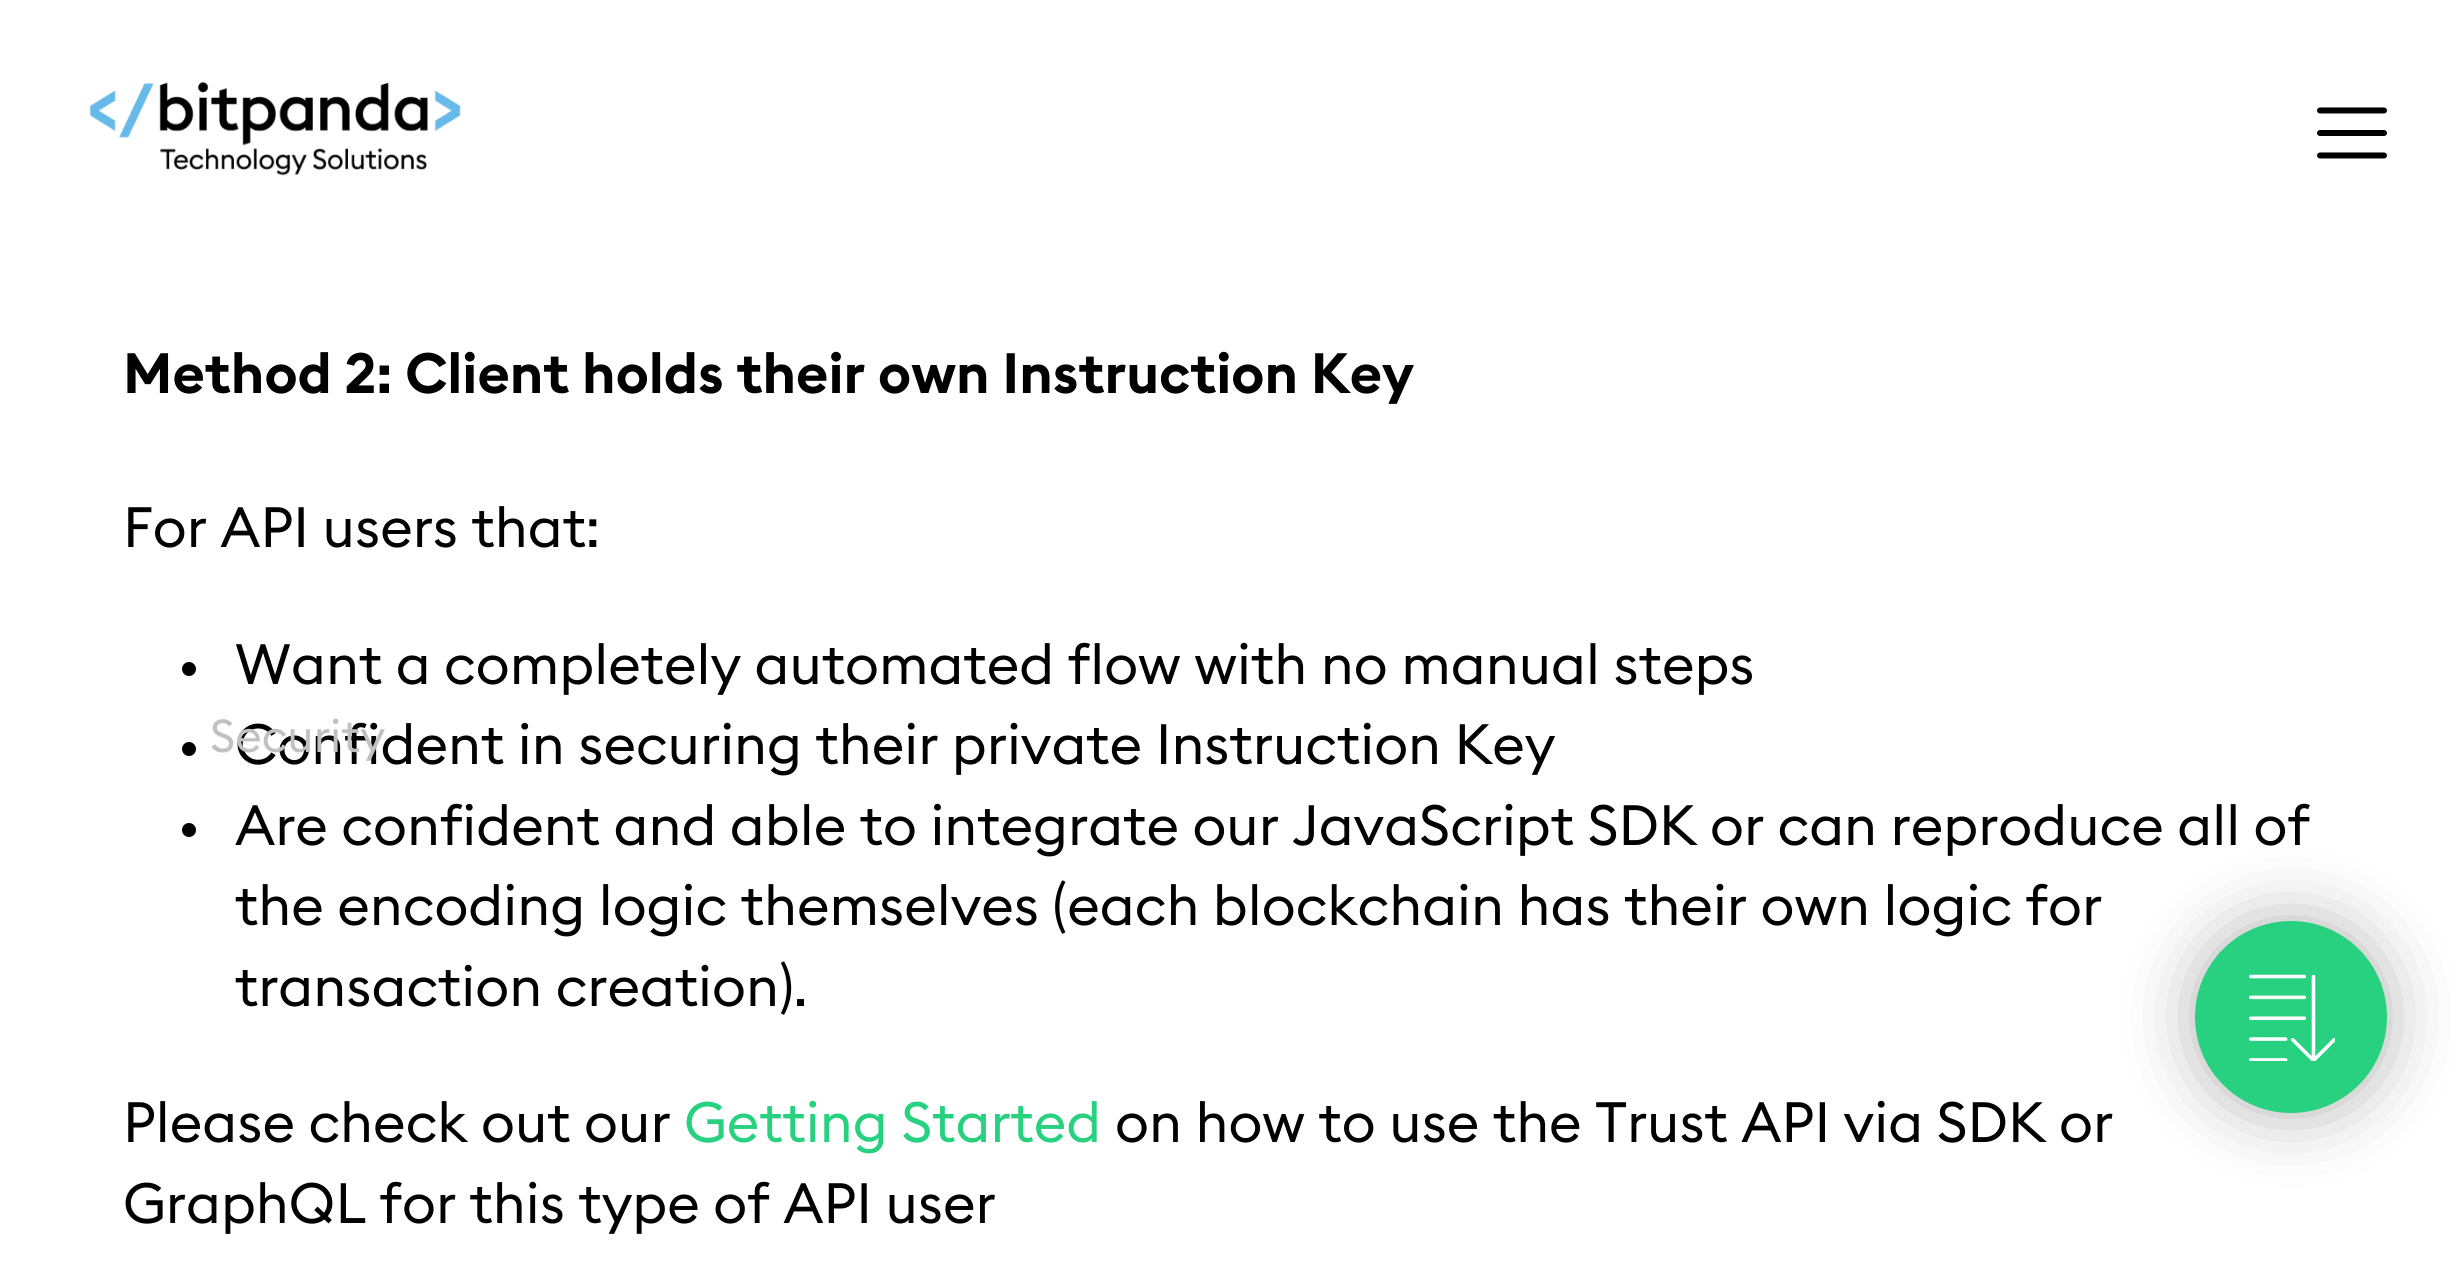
import math
import cairocffi as cairo

surface = cairo.ImageSurface(cairo.FORMAT_RGB24, 2456, 1264)
ctx = cairo.Context(surface)
options = cairo.FontOptions()
options.set_hint_metrics(cairo.HINT_METRICS_OFF)
options.set_hint_style(cairo.HINT_STYLE_NONE)
ctx.set_font_options(options)
ctx.set_miter_limit(4)


def rgb(r, g, b):
    ctx.set_source_rgb(r / 255, g / 255, b / 255)


def face(family, size, italic, bold):
    ctx.select_font_face(family, cairo.FONT_SLANT_ITALIC if italic else cairo.FONT_SLANT_NORMAL, cairo.FONT_WEIGHT_BOLD if bold else cairo.FONT_WEIGHT_NORMAL)
    ctx.set_font_size(size)


def label(x, y, s):
    ctx.move_to(x, y)
    ctx.show_text(s)


def rrect(x, y, w, h, r):
    ctx.new_sub_path()
    for i, (u, v) in enumerate([(x + w - r, y + h - r), (x + r, y + h - r), (x + r, y + r), (x + w - r, y + r)]):
        ctx.arc(u, v, r, i * math.pi / 2, (i + 1) * math.pi / 2)
    ctx.close_path()


def soft_shadow(x, y, w, h, r, blur, alpha):
    ctx.push_group_with_content(cairo.CONTENT_ALPHA)
    ctx.set_operator(cairo.OPERATOR_SOURCE)
    for i in range(15, -16, -2):
        e = blur * i / 6
        if min(w, h) + 2 * e > 0:
            ctx.set_source_rgba(0, 0, 0, alpha * math.erfc((i - 1) / 8.5) / 2)
            rrect(x - e, y - e, w + 2 * e, h + 2 * e, max(0, min(r + e + blur * .6, min(w, h) / 2 + e)))
            ctx.fill()
    ctx.mask(ctx.pop_group())


def image(path, x, y, w, h):
    ctx.save()
    ctx.set_source_surface(cairo.ImageSurface.create_from_png(path), x, y)
    ctx.rectangle(x, y, w, h)
    ctx.fill()
    ctx.restore()


rgb(255, 255, 255)
ctx.paint()
image('image0.png', 89, 82, 372, 94)
image('image1.png', 2317, 107, 70, 52)
face('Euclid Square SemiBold', 56, 0, 0)
rgb(0, 0, 0)
label(123, 393, 'Method 2: Client holds their own Instruction Key')
face('Euclid Square', 56, 0, 0)
label(123, 547, 'For API users that:')
ctx.new_path()
ctx.arc(189, 669, 7, 0, 2 * math.pi)
ctx.fill()
label(235, 684, 'Want a completely automated flow with no manual steps')
ctx.new_path()
ctx.arc(189, 749, 7, 0, 2 * math.pi)
ctx.fill()
label(235, 764, 'Confident in securing their private Instruction Key')
ctx.new_path()
ctx.arc(189, 830, 7, 0, 2 * math.pi)
ctx.fill()
label(235, 845, 'Are confident and able to integrate our JavaScript SDK or can reproduce all of')
label(235, 925, 'the encoding logic themselves (each blockchain has their own logic for')
label(235, 1006, 'transaction creation).')
label(123, 1142, 'Please check out our')
rgb(39, 209, 127)
label(684, 1142, 'Getting Started')
rgb(0, 0, 0)
label(1115, 1142, 'on how to use the Trust API via SDK or')
label(123, 1223, 'GraphQL for this type of API user')
face('Euclid Square', 45.5, 0, 0)
rgb(193, 193, 193)
label(210, 752, 'Security')
rgb(0, 0, 0)
soft_shadow(2195, 921, 192, 192, 96, 35, 0.3)
rgb(39, 209, 127)
ctx.arc(2291, 1017, 96, 0, 2 * math.pi)
ctx.fill()
image('image2.png', 2249, 974, 86, 87)
surface.write_to_png('render.png')
